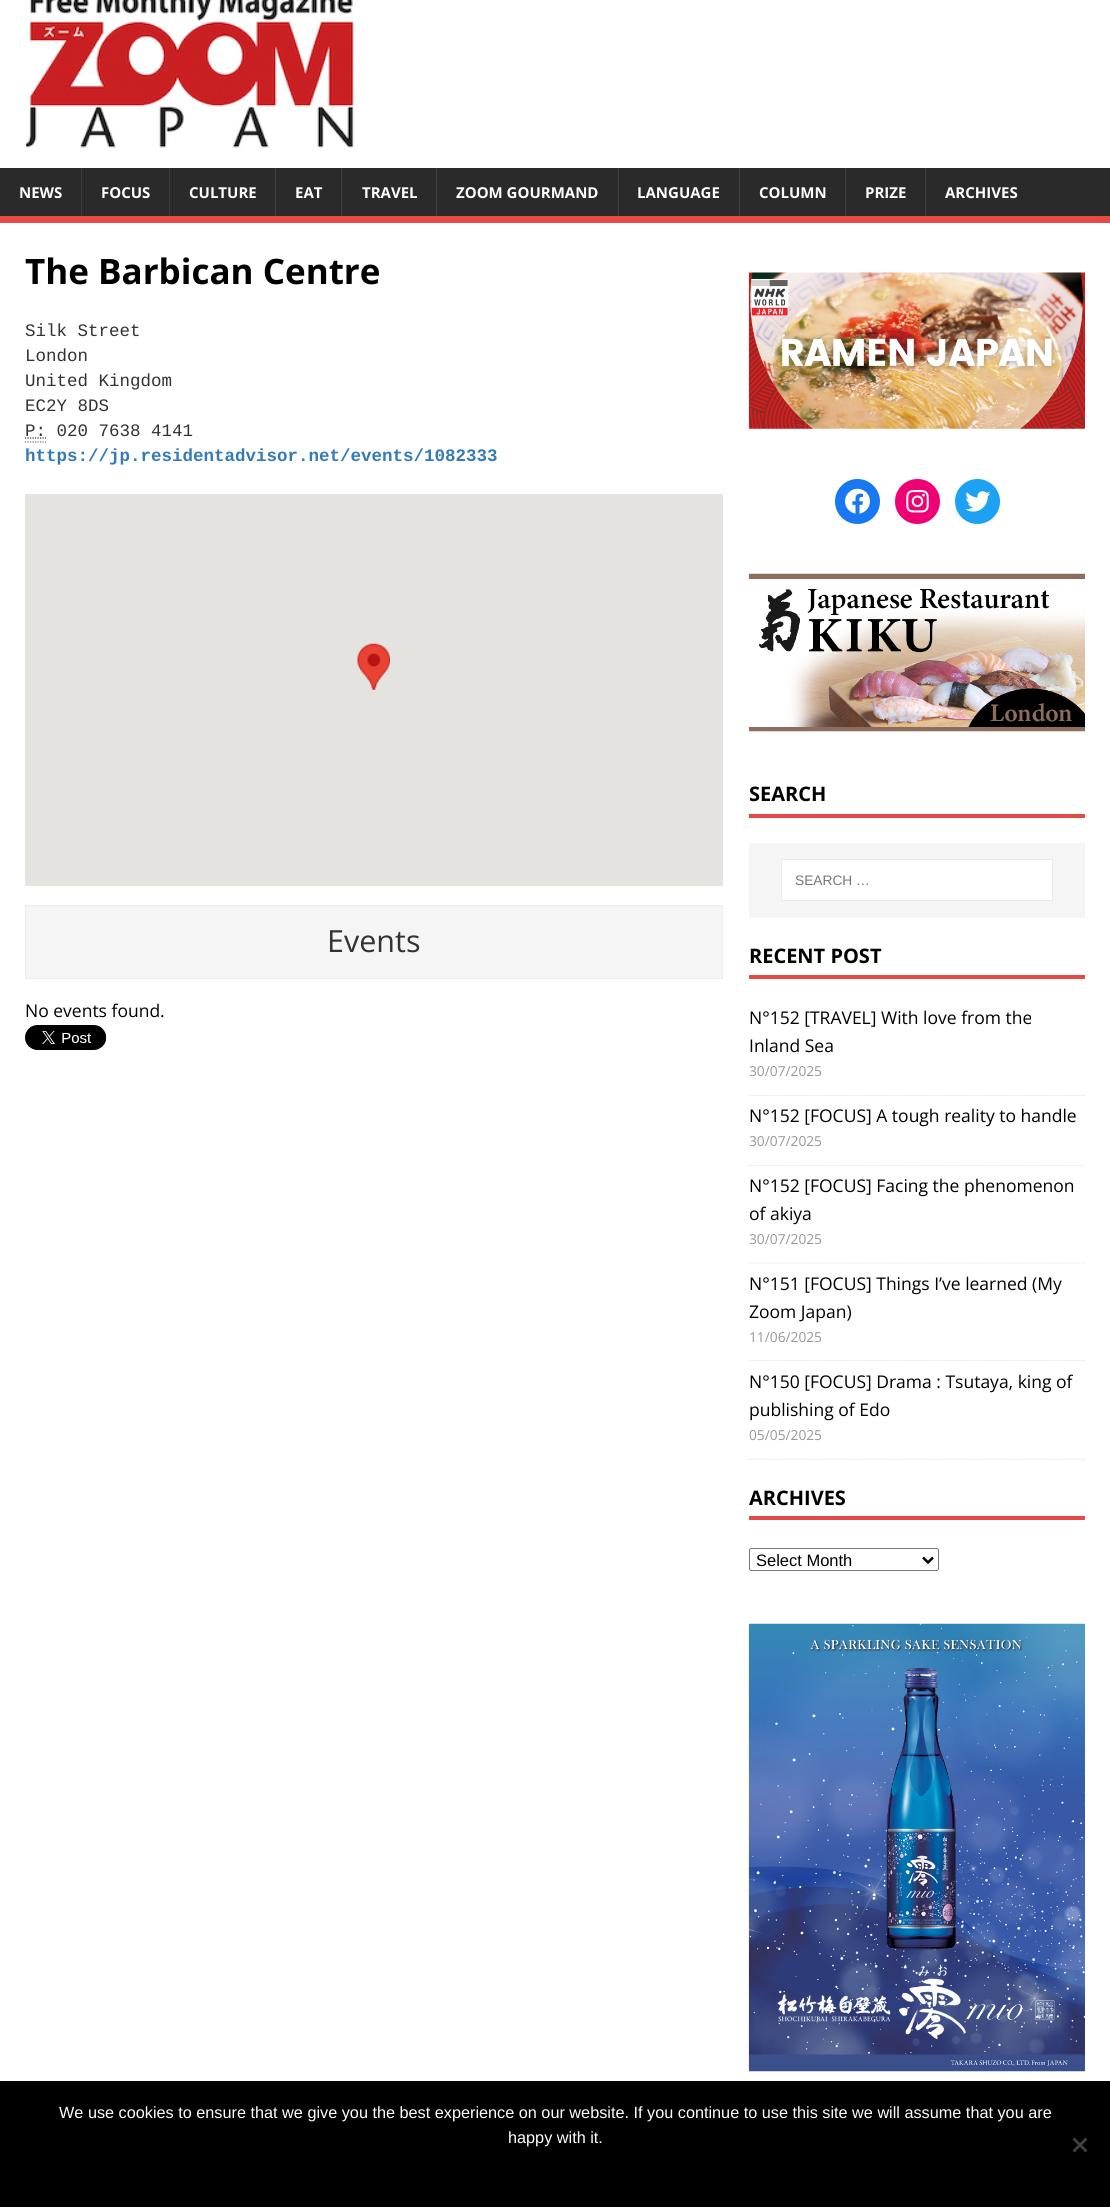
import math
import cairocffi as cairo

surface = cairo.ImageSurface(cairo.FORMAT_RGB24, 1110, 2207)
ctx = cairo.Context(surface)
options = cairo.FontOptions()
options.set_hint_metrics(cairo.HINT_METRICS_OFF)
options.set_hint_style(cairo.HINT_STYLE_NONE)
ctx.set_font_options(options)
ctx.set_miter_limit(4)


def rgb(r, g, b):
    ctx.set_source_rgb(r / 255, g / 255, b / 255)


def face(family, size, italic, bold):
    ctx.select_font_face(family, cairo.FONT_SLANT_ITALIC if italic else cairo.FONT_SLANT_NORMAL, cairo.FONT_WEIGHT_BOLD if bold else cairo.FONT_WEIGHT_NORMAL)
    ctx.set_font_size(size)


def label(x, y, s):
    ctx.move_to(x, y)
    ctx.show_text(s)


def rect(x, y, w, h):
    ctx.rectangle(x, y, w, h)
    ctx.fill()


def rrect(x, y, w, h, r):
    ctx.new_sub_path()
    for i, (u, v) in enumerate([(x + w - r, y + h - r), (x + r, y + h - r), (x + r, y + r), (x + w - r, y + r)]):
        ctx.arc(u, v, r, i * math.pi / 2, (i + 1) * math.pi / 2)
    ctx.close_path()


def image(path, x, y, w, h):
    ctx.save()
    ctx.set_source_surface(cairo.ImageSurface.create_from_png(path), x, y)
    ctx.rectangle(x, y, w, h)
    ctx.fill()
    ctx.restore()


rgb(255, 255, 255)
ctx.paint()
image('image0.png', 25, 0, 329, 148)
rgb(42, 42, 42)
rect(0, 168, 1110, 48)
rgb(230, 73, 70)
rect(0, 216, 1110, 7)
face('Open Sans', 15, 0, 1)
rgb(255, 255, 255)
label(19, 198, 'NEWS')
rgb(63, 63, 63)
rect(81, 168, 1, 48)
rgb(255, 255, 255)
label(101, 198, 'FOCUS')
rgb(63, 63, 63)
rect(169, 168, 1, 48)
rgb(255, 255, 255)
label(189, 198, 'CULTURE')
rgb(63, 63, 63)
rect(275, 168, 1, 48)
rgb(255, 255, 255)
label(295, 198, 'EAT')
rgb(63, 63, 63)
rect(341, 168, 1, 48)
rgb(255, 255, 255)
label(362, 198, 'TRAVEL')
rgb(63, 63, 63)
rect(436, 168, 1, 48)
rgb(255, 255, 255)
label(456, 198, 'ZOOM GOURMAND')
rgb(63, 63, 63)
rect(618, 168, 1, 48)
rgb(255, 255, 255)
label(637, 198, 'LANGUAGE')
rgb(63, 63, 63)
rect(739, 168, 1, 48)
rgb(255, 255, 255)
label(759, 198, 'COLUMN')
rgb(63, 63, 63)
rect(845, 168, 1, 48)
rgb(255, 255, 255)
label(865, 198, 'PRIZE')
rgb(63, 63, 63)
rect(925, 168, 1, 48)
rgb(255, 255, 255)
label(945, 198, 'ARCHIVES')
face('Open Sans', 35, 0, 1)
rgb(0, 0, 0)
label(25, 284, 'The Barbican Centre')
face('Liberation Mono', 17.5, 0, 0)
rgb(51, 51, 51)
label(25, 336, 'Silk Street')
label(25, 361, 'London')
label(25, 386, 'United Kingdom')
label(25, 411, 'EC2Y 8DS')
label(25, 436, 'P: 020 7638 4141')
ctx.new_path()
ctx.move_to(25, 442)
ctx.line_to(46, 442)
rgb(119, 119, 119)
ctx.set_line_width(1.2)
ctx.set_dash([1.25, 1.25])
ctx.stroke()
ctx.new_path()
ctx.move_to(25, 438)
ctx.line_to(46, 438)
rgb(51, 51, 51)
ctx.stroke()
face('Liberation Mono', 17.5, 0, 1)
rgb(51, 122, 183)
label(25, 461, 'https://jp.residentadvisor.net/events/1082333')
rgb(229, 227, 223)
rect(25, 494, 698, 392)
image('image1.png', 357, 643, 33, 47)
rgb(245, 245, 245)
ctx.rectangle(25.5, 905.5, 697, 73)
ctx.fill_preserve()
rgb(238, 238, 238)
ctx.set_line_width(1)
ctx.set_dash([])
ctx.stroke()
face('Open Sans', 30.5, 0, 0)
rgb(51, 51, 51)
label(327, 952, 'Events')
face('Open Sans', 17.5, 0, 0)
rgb(0, 0, 0)
label(25, 1017, 'No events found.')
image('image2.png', 25, 1025, 82, 25)
image('image3.png', 748, 272, 337, 157)
rgb(23, 120, 242)
ctx.arc(857.5, 501.5, 22.5, 0, 2 * math.pi)
ctx.fill()
image('image4.png', 845, 488, 25, 26)
rgb(240, 0, 117)
ctx.arc(917.5, 501.5, 22.5, 0, 2 * math.pi)
ctx.fill()
image('image5.png', 906, 490, 23, 23)
rgb(29, 161, 242)
ctx.arc(977.5, 501.5, 22.5, 0, 2 * math.pi)
ctx.fill()
image('image6.png', 965, 491, 26, 21)
image('image7.png', 748, 573, 337, 159)
rgb(230, 73, 70)
rect(749, 814, 336, 4)
face('Open Sans', 20, 0, 1)
rgb(0, 0, 0)
label(749, 801, 'SEARCH')
rgb(245, 245, 245)
rect(749, 843, 336, 75)
rgb(255, 255, 255)
ctx.rectangle(781.5, 859.5, 271, 41)
ctx.fill_preserve()
rgb(235, 235, 235)
ctx.stroke()
face('Liberation Sans', 13.75, 0, 0)
rgb(117, 117, 117)
label(795, 885, 'SEARCH …')
rgb(230, 73, 70)
rect(749, 975, 336, 4)
face('Open Sans', 20, 0, 1)
rgb(0, 0, 0)
label(749, 963, 'RECENT POST')
ctx.new_path()
ctx.move_to(749, 1095.5)
ctx.line_to(1085, 1095.5)
rgb(229, 229, 229)
ctx.set_line_width(1.2)
ctx.set_dash([1.25, 1.25])
ctx.stroke()
face('Open Sans', 17.5, 0, 0)
rgb(0, 0, 0)
label(749, 1024, 'N°152 [TRAVEL] With love from the')
label(749, 1052, 'Inland Sea')
face('Open Sans', 13.75, 0, 0)
rgb(151, 151, 151)
label(749, 1076, '30/07/2025')
ctx.new_path()
ctx.move_to(749, 1165.5)
ctx.line_to(1085, 1165.5)
rgb(229, 229, 229)
ctx.stroke()
face('Open Sans', 17.5, 0, 0)
rgb(0, 0, 0)
label(749, 1122, 'N°152 [FOCUS] A tough reality to handle')
face('Open Sans', 13.75, 0, 0)
rgb(151, 151, 151)
label(749, 1146, '30/07/2025')
ctx.new_path()
ctx.move_to(749, 1263)
ctx.line_to(1085, 1263)
rgb(229, 229, 229)
ctx.stroke()
face('Open Sans', 17.5, 0, 0)
rgb(0, 0, 0)
label(749, 1192, 'N°152 [FOCUS] Facing the phenomenon')
label(749, 1220, 'of akiya')
face('Open Sans', 13.75, 0, 0)
rgb(151, 151, 151)
label(749, 1244, '30/07/2025')
ctx.new_path()
ctx.move_to(749, 1360.5)
ctx.line_to(1085, 1360.5)
rgb(229, 229, 229)
ctx.stroke()
face('Open Sans', 17.5, 0, 0)
rgb(0, 0, 0)
label(749, 1290, 'N°151 [FOCUS] Things I’ve learned (My')
label(749, 1318, 'Zoom Japan)')
face('Open Sans', 13.75, 0, 0)
rgb(151, 151, 151)
label(749, 1342, '11/06/2025')
ctx.save()
ctx.rectangle(749, 943, 336, 517)
ctx.clip()
ctx.new_path()
ctx.move_to(749, 1459.5)
ctx.line_to(1085, 1459.5)
rgb(229, 229, 229)
ctx.stroke()
ctx.restore()
face('Open Sans', 17.5, 0, 0)
rgb(0, 0, 0)
label(749, 1388, 'N°150 [FOCUS] Drama : Tsutaya, king of')
label(749, 1416, 'publishing of Edo')
face('Open Sans', 13.75, 0, 0)
rgb(151, 151, 151)
label(749, 1440, '05/05/2025')
rgb(230, 73, 70)
rect(749, 1516, 336, 4)
face('Open Sans', 20, 0, 1)
rgb(0, 0, 0)
label(749, 1505, 'ARCHIVES')
rrect(749.5, 1548.5, 189, 22, 2)
rgb(118, 118, 118)
ctx.set_line_width(1)
ctx.set_dash([])
ctx.stroke()
ctx.new_path()
ctx.move_to(923, 1557.5)
ctx.line_to(928, 1562.5)
ctx.line_to(933, 1557.5)
rgb(0, 0, 0)
ctx.set_line_width(2.5)
ctx.stroke()
face('Liberation Sans', 16.5, 0, 0)
label(756, 1566, 'Select Month')
image('image8.png', 748, 1623, 337, 449)
rect(0, 2081, 1110, 126)
face('Liberation Sans', 16.25, 0, 0)
rgb(255, 255, 255)
label(59, 2118, 'We use cookies to ensure that we give you the best experience on our website. If you continue to use this site we will assume that you are')
label(508, 2143, 'happy with it.')
rgb(64, 64, 64)
ctx.new_path()
ctx.move_to(1085.5, 2137.5)
ctx.line_to(1087.5, 2139.5)
ctx.line_to(1074.5, 2152.5)
ctx.line_to(1072.5, 2150.5)
ctx.close_path()
ctx.fill()
ctx.new_path()
ctx.move_to(1072.5, 2139.5)
ctx.line_to(1074.5, 2137.5)
ctx.line_to(1087.5, 2150.5)
ctx.line_to(1085.5, 2152.5)
ctx.close_path()
ctx.fill()
surface.write_to_png('render.png')
